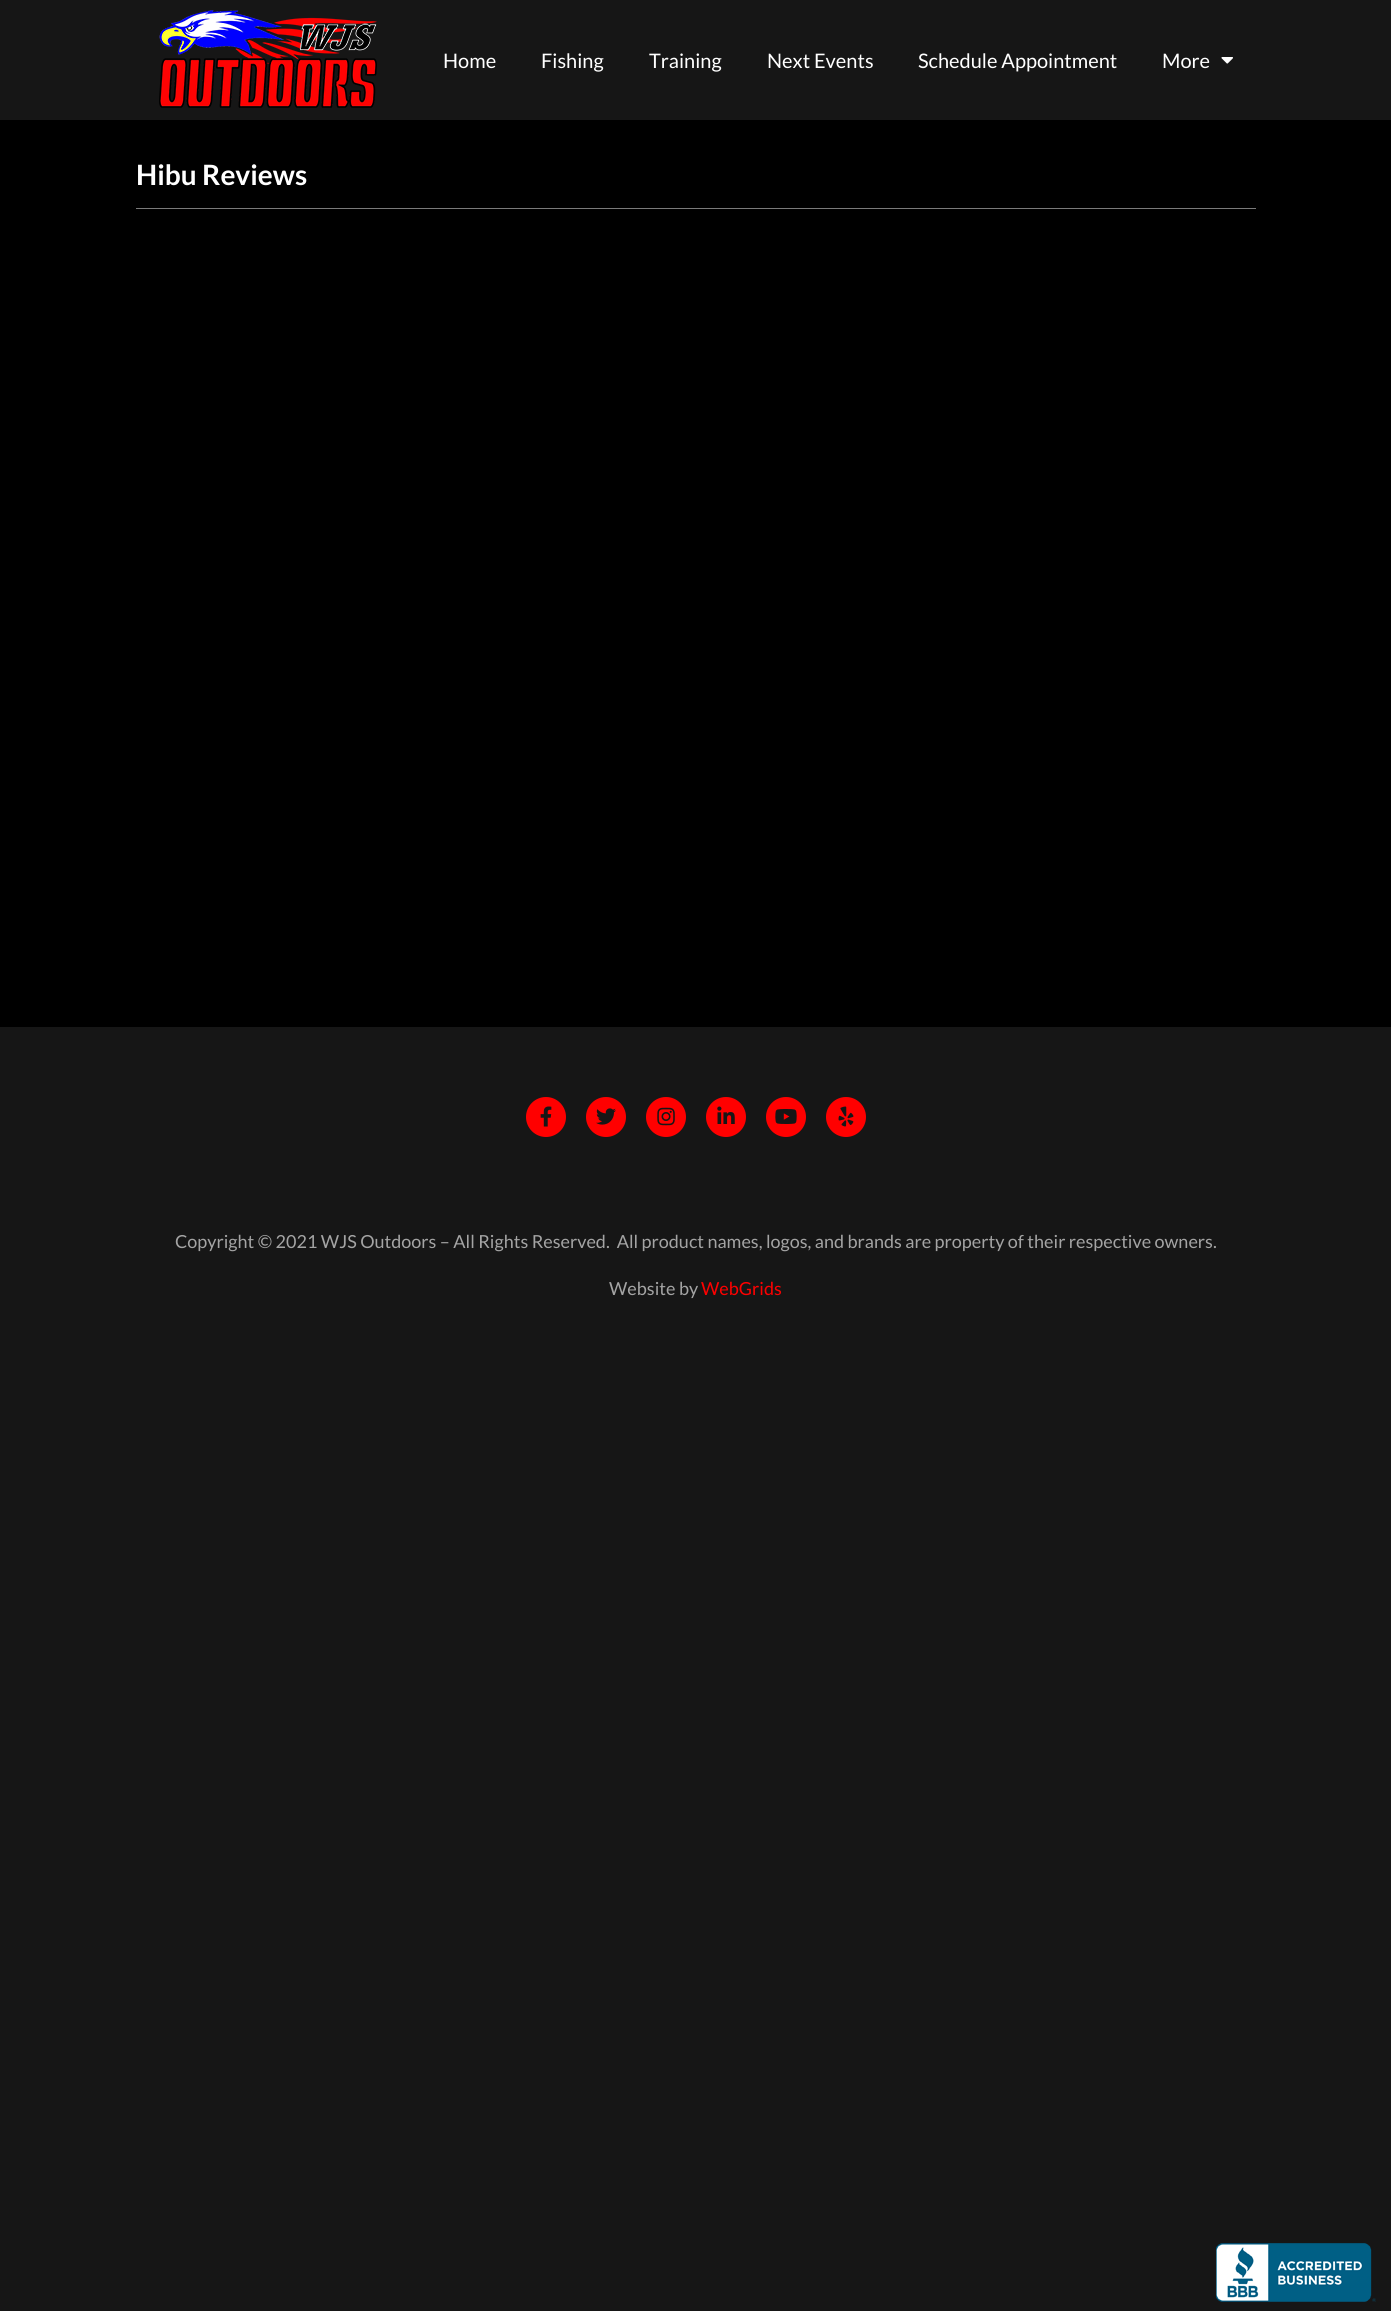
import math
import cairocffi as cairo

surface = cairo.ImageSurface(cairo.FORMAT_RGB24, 1391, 2311)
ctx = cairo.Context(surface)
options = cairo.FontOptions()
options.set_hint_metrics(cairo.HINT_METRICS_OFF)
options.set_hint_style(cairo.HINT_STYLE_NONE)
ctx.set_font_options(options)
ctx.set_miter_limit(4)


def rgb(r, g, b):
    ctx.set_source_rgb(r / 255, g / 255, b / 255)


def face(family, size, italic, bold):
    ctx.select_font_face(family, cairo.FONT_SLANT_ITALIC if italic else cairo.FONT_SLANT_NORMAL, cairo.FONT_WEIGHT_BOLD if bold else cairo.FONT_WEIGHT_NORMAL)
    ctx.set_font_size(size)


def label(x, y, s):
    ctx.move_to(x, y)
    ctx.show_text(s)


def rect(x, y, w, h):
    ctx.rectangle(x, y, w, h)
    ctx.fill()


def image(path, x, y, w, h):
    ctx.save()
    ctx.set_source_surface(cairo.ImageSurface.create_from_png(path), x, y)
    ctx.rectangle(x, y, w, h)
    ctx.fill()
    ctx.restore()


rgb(22, 22, 22)
ctx.paint()
image('image0.png', 159, 10, 218, 98)
face('Lato', 20, 0, 0)
rgb(255, 255, 255)
label(443, 68, 'Home')
label(541, 68, 'Fishing')
label(649, 68, 'Training')
label(767, 68, 'Next Events')
label(918, 68, 'Schedule Appointment')
label(1162, 68, 'More')
image('image1.png', 1221, 57, 12, 7)
rgb(0, 0, 0)
rect(0, 120, 1391, 907)
face('Lato', 28, 0, 1)
rgb(255, 255, 255)
label(136, 185, 'Hibu Reviews')
rgb(122, 122, 122)
rect(136, 208, 1120, 1)
rgb(255, 0, 0)
ctx.new_path()
ctx.arc(546, 1117, 20, 0, 2 * math.pi)
ctx.fill()
image('image2.png', 540, 1106, 12, 21)
ctx.arc(606, 1117, 20, 0, 2 * math.pi)
ctx.fill()
image('image3.png', 596, 1108, 20, 17)
ctx.arc(666, 1117, 20, 0, 2 * math.pi)
ctx.fill()
image('image4.png', 657, 1107, 18, 19)
ctx.arc(726, 1117, 20, 0, 2 * math.pi)
ctx.fill()
image('image5.png', 717, 1106, 18, 18)
ctx.arc(786, 1117, 20, 0, 2 * math.pi)
ctx.fill()
image('image6.png', 775, 1109, 22, 15)
ctx.arc(846, 1117, 20, 0, 2 * math.pi)
ctx.fill()
image('image7.png', 838, 1106, 16, 21)
face('Lato', 18, 0, 0)
rgb(164, 164, 164)
label(175, 1248, 'Copyright © 2021 WJS Outdoors – All Rights Reserved.  All product names, logos, and brands are property of their respective owners.')
label(609, 1295, 'Website by')
rgb(255, 0, 0)
label(701, 1295, 'WebGrids')
image('image8.png', 1216, 2243, 160, 59)
surface.write_to_png('render.png')
